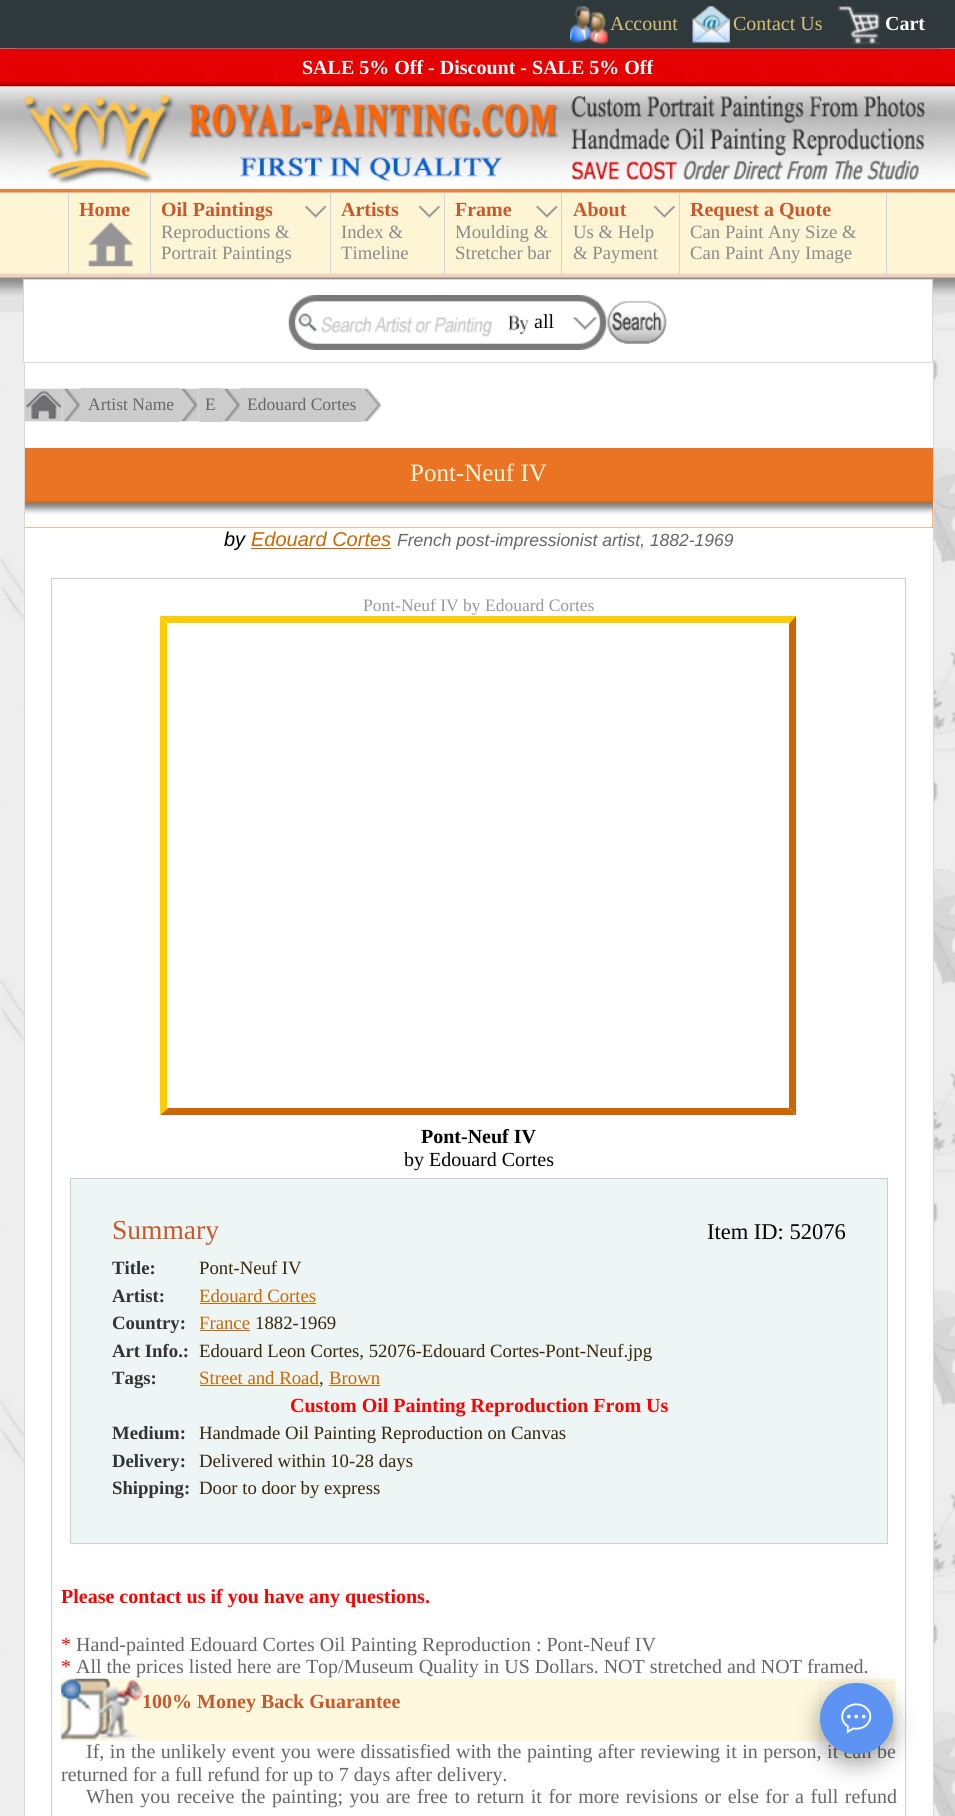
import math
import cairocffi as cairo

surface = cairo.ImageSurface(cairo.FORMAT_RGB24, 955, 1816)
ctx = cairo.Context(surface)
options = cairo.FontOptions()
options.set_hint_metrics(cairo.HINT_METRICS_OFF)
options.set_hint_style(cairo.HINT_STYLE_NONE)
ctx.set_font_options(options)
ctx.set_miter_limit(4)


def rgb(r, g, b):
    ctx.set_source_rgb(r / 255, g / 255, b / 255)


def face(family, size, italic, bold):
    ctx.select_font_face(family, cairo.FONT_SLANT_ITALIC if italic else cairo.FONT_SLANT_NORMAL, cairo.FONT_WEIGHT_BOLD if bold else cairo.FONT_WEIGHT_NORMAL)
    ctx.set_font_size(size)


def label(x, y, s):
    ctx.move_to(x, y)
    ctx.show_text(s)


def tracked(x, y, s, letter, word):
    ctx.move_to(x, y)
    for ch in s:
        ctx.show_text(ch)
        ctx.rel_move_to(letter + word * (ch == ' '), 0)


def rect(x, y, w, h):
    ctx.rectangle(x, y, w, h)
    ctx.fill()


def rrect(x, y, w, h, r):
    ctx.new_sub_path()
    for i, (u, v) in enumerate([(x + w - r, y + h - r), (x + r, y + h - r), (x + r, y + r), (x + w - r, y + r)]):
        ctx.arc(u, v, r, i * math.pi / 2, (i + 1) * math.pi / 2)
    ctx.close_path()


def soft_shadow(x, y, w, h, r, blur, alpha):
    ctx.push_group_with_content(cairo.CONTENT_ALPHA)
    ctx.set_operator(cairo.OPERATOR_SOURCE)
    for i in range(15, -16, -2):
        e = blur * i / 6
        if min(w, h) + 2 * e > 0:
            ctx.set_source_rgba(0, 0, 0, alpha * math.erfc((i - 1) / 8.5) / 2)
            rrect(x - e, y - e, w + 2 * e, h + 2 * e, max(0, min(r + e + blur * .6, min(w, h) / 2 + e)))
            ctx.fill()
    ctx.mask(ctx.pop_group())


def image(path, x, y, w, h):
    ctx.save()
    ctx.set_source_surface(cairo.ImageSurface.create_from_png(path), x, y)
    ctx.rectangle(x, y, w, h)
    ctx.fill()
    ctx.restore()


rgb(255, 255, 255)
ctx.paint()
image('image0.png', 0, 48, 955, 1768)
image('image6.png', 0, 86, 955, 103)
image('image7.png', 15, 86, 550, 102)
image('image8.png', 565, 86, 375, 102)
image('image5.png', 0, 48, 955, 39)
image('image1.png', 0, 0, 955, 49)
ctx.set_source_rgba(0.416, 0.431, 0.439, 0.75)
rect(15, 48, 925, 1)
image('image2.png', 570, 6, 38, 39)
face('Liberation Serif', 20, 0, 0)
rgb(212, 192, 126)
label(610, 30, 'Account')
image('image3.png', 692, 6, 38, 38)
label(733, 30, 'Contact Us')
image('image4.png', 837, 6, 44, 39)
face('Liberation Serif', 20, 0, 1)
rgb(255, 255, 255)
label(885, 30, 'Cart')
label(302, 74, 'SALE 5% Off - Discount - SALE 5% Off')
image('image9.png', 0, 188, 955, 125)
rgb(252, 244, 239)
rect(15, 188, 851, 1)
rgb(211, 211, 211)
rect(150, 193, 1, 81)
rect(68, 193, 1, 81)
rgb(201, 89, 44)
label(79, 216, 'Home')
image('image10.png', 88, 222, 45, 45)
image('image11.png', 305, 206, 22, 12)
rgb(211, 211, 211)
rect(330, 193, 1, 81)
rgb(201, 89, 44)
label(161, 216, 'Oil Paintings')
face('Liberation Serif', 18.75, 0, 0)
rgb(139, 139, 139)
label(161, 238, 'Reproductions &')
label(161, 259, 'Portrait Paintings')
image('image12.png', 418, 206, 23, 12)
rgb(211, 211, 211)
rect(444, 193, 1, 81)
face('Liberation Serif', 20, 0, 1)
rgb(201, 89, 44)
label(341, 216, 'Artists')
face('Liberation Serif', 18.75, 0, 0)
rgb(139, 139, 139)
label(341, 238, 'Index &')
label(341, 259, 'Timeline')
image('image13.png', 536, 206, 22, 12)
rgb(211, 211, 211)
rect(561, 193, 1, 81)
face('Liberation Serif', 20, 0, 1)
rgb(201, 89, 44)
label(455, 216, 'Frame')
face('Liberation Serif', 18.75, 0, 0)
rgb(139, 139, 139)
label(455, 238, 'Moulding &')
label(455, 259, 'Stretcher bar')
image('image12.png', 653, 206, 23, 12)
rgb(211, 211, 211)
rect(679, 193, 1, 81)
face('Liberation Serif', 20, 0, 1)
rgb(201, 89, 44)
label(573, 216, 'About')
face('Liberation Serif', 18.75, 0, 0)
rgb(139, 139, 139)
label(573, 238, 'Us & Help')
label(573, 259, '& Payment')
rgb(211, 211, 211)
rect(886, 193, 1, 81)
face('Liberation Serif', 20, 0, 1)
rgb(201, 89, 44)
label(690, 216, 'Request a Quote')
face('Liberation Serif', 18.75, 0, 0)
rgb(139, 139, 139)
label(690, 238, 'Can Paint Any Size &')
label(690, 259, 'Can Paint Any Image')
rgb(255, 255, 255)
rect(25, 363, 908, 1453)
ctx.rectangle(24.5, 360.5, 909, 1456)
rgb(216, 216, 216)
ctx.set_line_width(1)
ctx.stroke()
rgb(255, 255, 255)
ctx.rectangle(23.5, 279.5, 909, 83)
ctx.fill_preserve()
rgb(216, 216, 216)
ctx.stroke()
image('image14.png', 288, 295, 319, 55)
image('image15.png', 320, 314, 173, 23)
image('image16.png', 581, 302, 18, 38)
face('Liberation Serif', 20, 0, 0)
rgb(0, 0, 0)
label(534, 328, 'all')
image('image17.png', 607, 301, 60, 43)
image('image18.png', 25, 388, 38, 34)
image('image19.png', 62, 388, 19, 34)
rgb(204, 204, 204)
rect(81, 388, 99, 34)
face('Liberation Serif', 17.5, 0, 0)
rgb(102, 102, 102)
label(88, 410, 'Artist Name')
image('image20.png', 180, 388, 19, 34)
rgb(204, 204, 204)
rect(199, 388, 24, 34)
rgb(102, 102, 102)
label(205, 410, 'E')
image('image21.png', 222, 388, 19, 34)
rgb(204, 204, 204)
rect(241, 388, 122, 34)
rgb(102, 102, 102)
label(247, 410, 'Edouard Cortes')
image('image22.png', 362, 388, 20, 34)
rgb(235, 116, 36)
rect(25, 448, 908, 80)
face('Liberation Serif', 25, 0, 0)
rgb(254, 248, 222)
label(410, 481, 'Pont-Neuf IV')
image('image23.png', 25, 500, 908, 28)
face('Liberation Sans', 20, 1, 0)
rgb(0, 0, 0)
label(224, 546, 'by')
rgb(204, 102, 0)
label(251, 546, 'Edouard Cortes')
rect(251, 548, 140, 1)
face('Liberation Sans', 17.5, 1, 0)
rgb(102, 102, 102)
label(397, 546, 'French post-impressionist artist, 1882-1969')
ctx.rectangle(51.5, 578.5, 854, 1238)
rgb(206, 206, 206)
ctx.stroke()
face('Liberation Serif', 17.5, 0, 0)
rgb(153, 153, 153)
label(363, 611, 'Pont-Neuf IV by Edouard Cortes')
rgb(255, 204, 0)
ctx.new_path()
ctx.move_to(160, 616)
ctx.line_to(796, 616)
ctx.line_to(789, 624)
ctx.line_to(168, 624)
ctx.close_path()
ctx.fill()
rgb(204, 102, 0)
ctx.new_path()
ctx.move_to(796, 616)
ctx.line_to(796, 1115)
ctx.line_to(789, 1108)
ctx.line_to(789, 624)
ctx.close_path()
ctx.fill()
ctx.new_path()
ctx.move_to(796, 1115)
ctx.line_to(160, 1115)
ctx.line_to(168, 1108)
ctx.line_to(789, 1108)
ctx.close_path()
ctx.fill()
rgb(255, 204, 0)
ctx.new_path()
ctx.move_to(160, 1115)
ctx.line_to(160, 616)
ctx.line_to(168, 624)
ctx.line_to(168, 1108)
ctx.close_path()
ctx.fill()
rgb(255, 255, 255)
rect(167, 623, 622, 485)
face('Liberation Serif', 20, 0, 1)
rgb(0, 0, 0)
label(421, 1143, 'Pont-Neuf IV')
face('Liberation Serif', 20, 0, 0)
label(404, 1166, 'by Edouard Cortes')
rgb(238, 245, 245)
ctx.rectangle(70.5, 1178.5, 817, 365)
ctx.fill_preserve()
rgb(206, 206, 206)
ctx.stroke()
face('Liberation Serif', 27.5, 0, 0)
rgb(201, 89, 44)
label(112, 1239, 'Summary')
face('Liberation Serif', 22.5, 0, 0)
rgb(0, 0, 0)
label(707, 1239, 'Item ID: 52076')
face('Liberation Serif', 18.75, 0, 1)
rgb(51, 51, 51)
label(112, 1274, 'Title:')
face('Liberation Serif', 18.75, 0, 0)
rgb(54, 38, 10)
label(199, 1274, 'Pont-Neuf IV')
face('Liberation Serif', 18.75, 0, 1)
rgb(51, 51, 51)
label(112, 1302, 'Artist:')
face('Liberation Serif', 18.75, 0, 0)
rgb(204, 102, 0)
label(199, 1302, 'Edouard Cortes')
rect(200, 1303, 116, 1)
face('Liberation Serif', 18.75, 0, 1)
rgb(51, 51, 51)
label(112, 1329, 'Country:')
face('Liberation Serif', 18.75, 0, 0)
rgb(204, 102, 0)
label(199, 1329, 'France')
rect(200, 1330, 50, 1)
rgb(54, 38, 10)
label(255, 1329, '1882-1969')
face('Liberation Serif', 18.75, 0, 1)
rgb(51, 51, 51)
label(112, 1357, 'Art Info.:')
face('Liberation Serif', 18.75, 0, 0)
rgb(54, 38, 10)
label(199, 1357, 'Edouard Leon Cortes, 52076-Edouard Cortes-Pont-Neuf.jpg')
face('Liberation Serif', 18.75, 0, 1)
rgb(51, 51, 51)
label(112, 1384, 'Tags:')
face('Liberation Serif', 18.75, 0, 0)
rgb(204, 102, 0)
label(199, 1384, 'Street and Road')
rect(200, 1385, 119, 1)
rgb(54, 38, 10)
label(319, 1384, ',')
rgb(204, 102, 0)
label(329, 1384, 'Brown')
rect(329, 1385, 51, 1)
face('Liberation Serif', 20, 0, 1)
rgb(255, 0, 0)
label(290, 1412, 'Custom Oil Painting Reproduction From Us')
face('Liberation Serif', 18.75, 0, 1)
rgb(51, 51, 51)
label(112, 1439, 'Medium:')
face('Liberation Serif', 18.75, 0, 0)
rgb(54, 38, 10)
label(199, 1439, 'Handmade Oil Painting Reproduction on Canvas')
face('Liberation Serif', 18.75, 0, 1)
rgb(51, 51, 51)
label(112, 1467, 'Delivery:')
face('Liberation Serif', 18.75, 0, 0)
rgb(54, 38, 10)
label(199, 1467, 'Delivered within 10-28 days')
face('Liberation Serif', 18.75, 0, 1)
rgb(51, 51, 51)
label(112, 1494, 'Shipping:')
face('Liberation Serif', 18.75, 0, 0)
rgb(54, 38, 10)
label(199, 1494, 'Door to door by express')
face('Liberation Serif', 20, 0, 1)
rgb(255, 0, 0)
label(61, 1603, 'Please contact us if you have any questions.')
face('Liberation Serif', 20, 0, 0)
label(61, 1651, '*')
rgb(102, 102, 102)
label(76, 1651, 'Hand-painted Edouard Cortes Oil Painting Reproduction : Pont-Neuf IV')
rgb(255, 0, 0)
label(61, 1673, '*')
rgb(102, 102, 102)
label(76, 1673, 'All the prices listed here are Top/Museum Quality in US Dollars. NOT stretched and NOT framed.')
rgb(254, 248, 222)
rect(61, 1679, 835, 62)
image('image24.png', 61, 1678, 82, 62)
face('Liberation Serif', 20, 0, 1)
rgb(201, 89, 44)
label(142, 1708, '100% Money Back Guarantee')
face('Liberation Serif', 20, 0, 0)
rgb(102, 102, 102)
tracked(86, 1758, 'If, in the unlikely event you were dissatisfied with the painting after reviewing it in person, it can be', 0, 0.5)
label(61, 1781, 'returned for a full refund for up to 7 days after delivery.')
tracked(86, 1803, 'When you receive the painting; you are free to return it for more revisions or else for a full refund', 0, 1.5)
rgb(0, 0, 0)
soft_shadow(820, 1690, 73, 71, 35.5, 12.5, 0.19)
soft_shadow(820, 1693, 73, 71, 35.5, 10.5, 0.2)
rgb(93, 148, 243)
rrect(820, 1683, 73, 71, 35.5)
ctx.fill()
ctx.rectangle(820.5, 1683.5, 72, 70)
ctx.set_source_rgba(0, 0, 0, 0.05)
ctx.stroke()
image('image25.png', 841, 1703, 31, 31)
surface.write_to_png('render.png')
